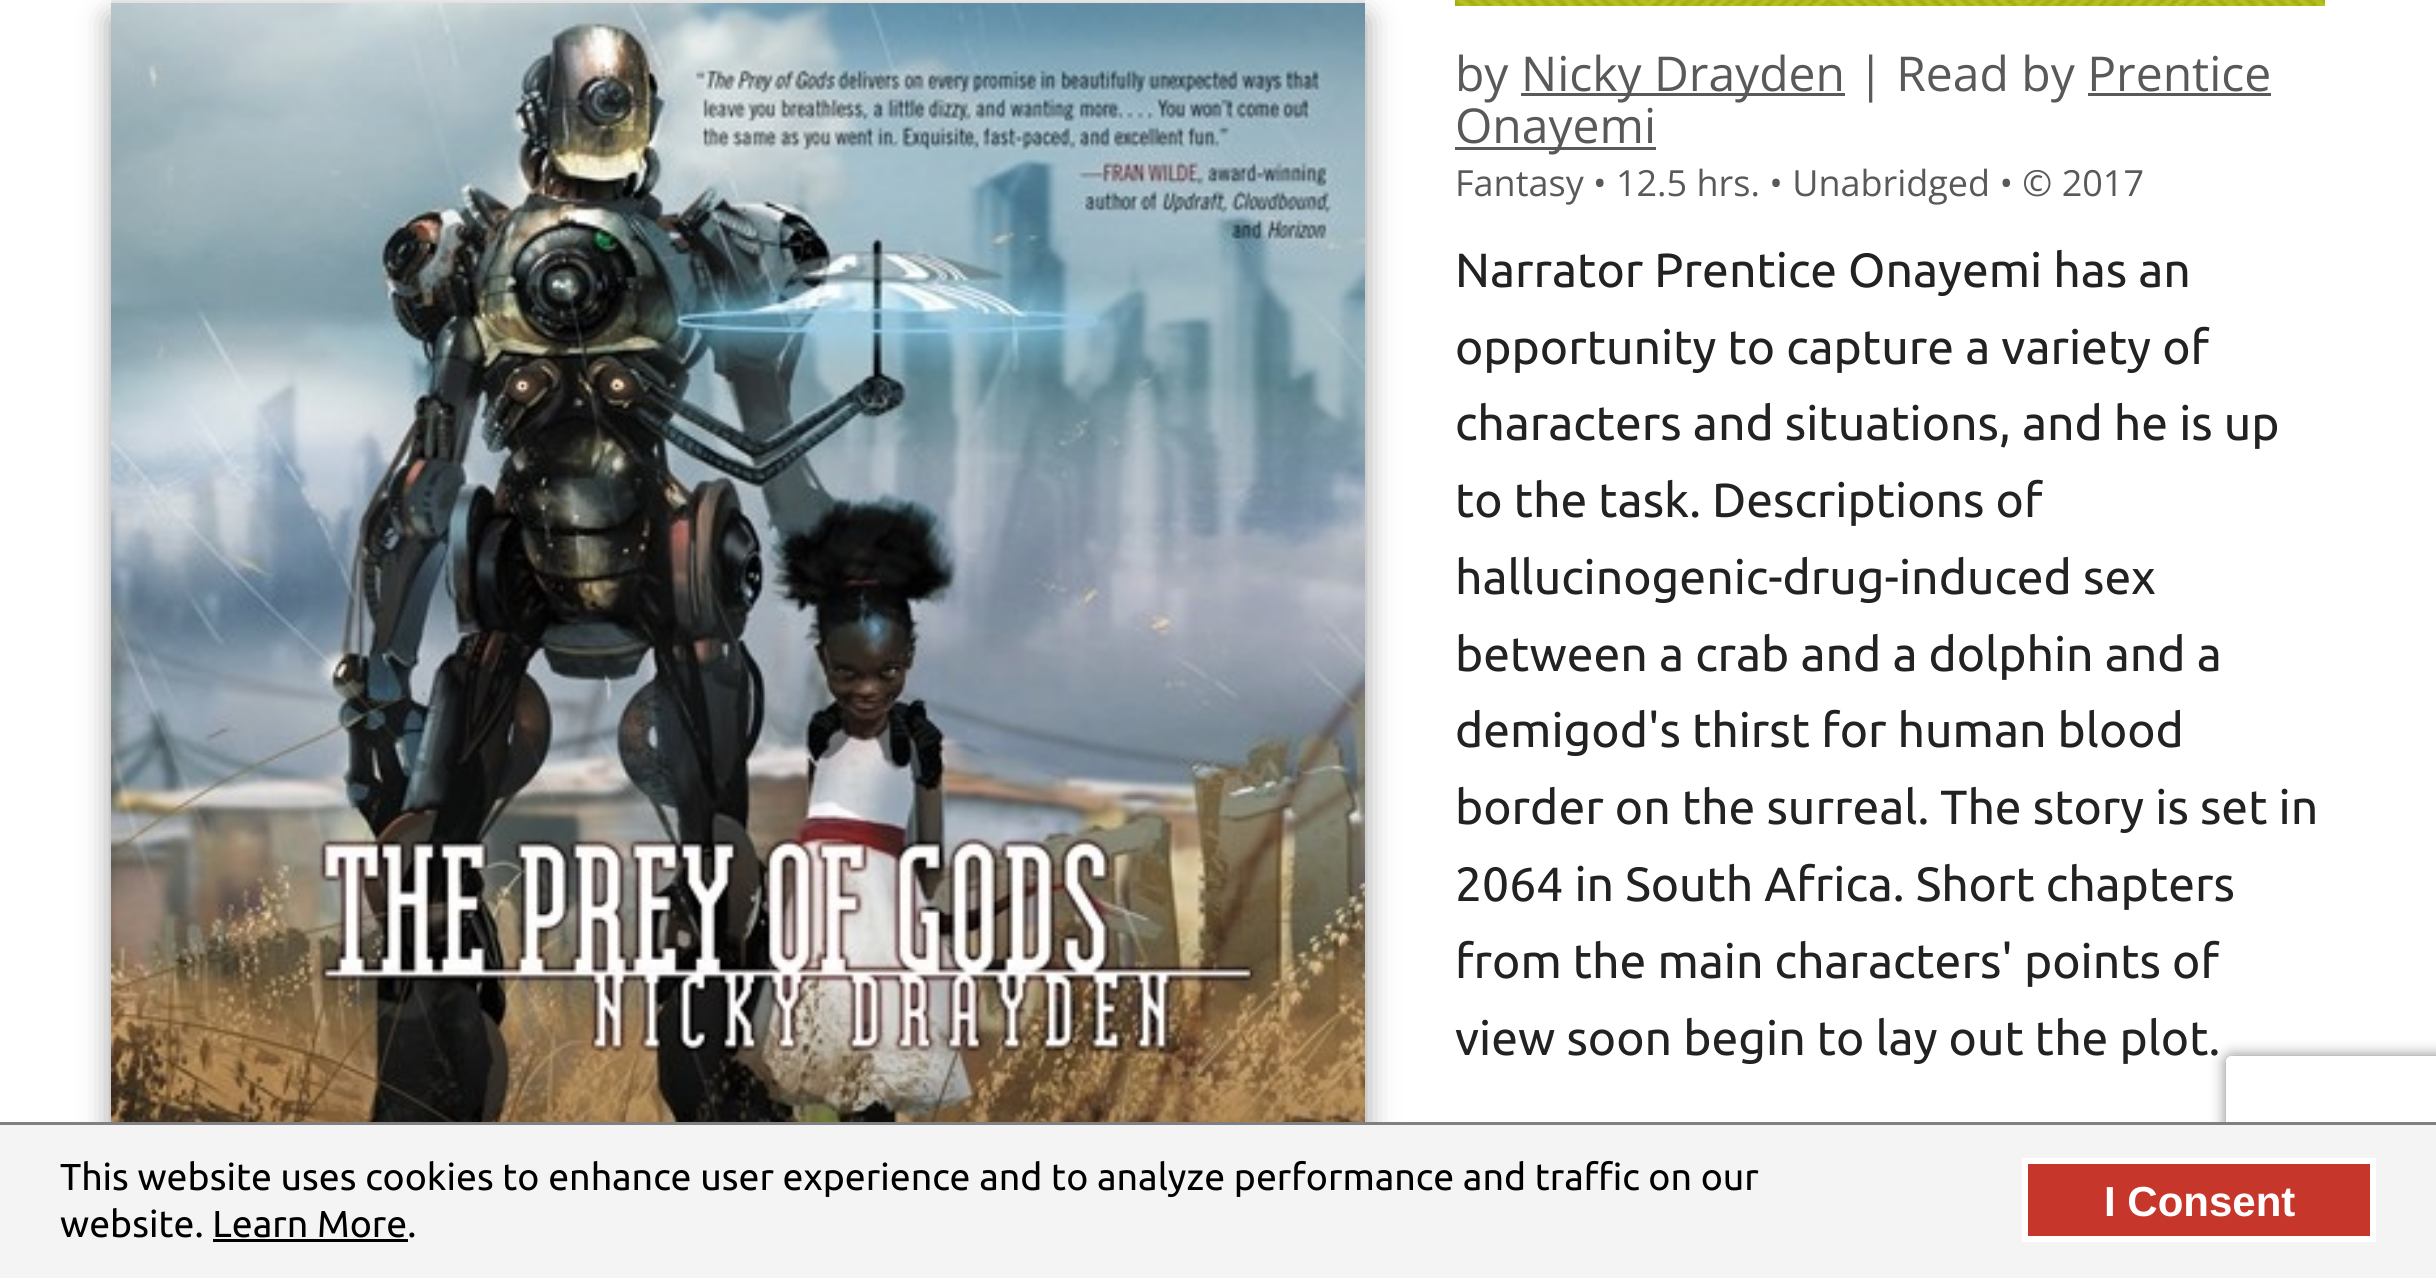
import math
import cairocffi as cairo

surface = cairo.ImageSurface(cairo.FORMAT_RGB24, 2436, 1278)
ctx = cairo.Context(surface)
options = cairo.FontOptions()
options.set_hint_metrics(cairo.HINT_METRICS_OFF)
options.set_hint_style(cairo.HINT_STYLE_NONE)
ctx.set_font_options(options)
ctx.set_miter_limit(4)


def rgb(r, g, b):
    ctx.set_source_rgb(r / 255, g / 255, b / 255)


def face(family, size, italic, bold):
    ctx.select_font_face(family, cairo.FONT_SLANT_ITALIC if italic else cairo.FONT_SLANT_NORMAL, cairo.FONT_WEIGHT_BOLD if bold else cairo.FONT_WEIGHT_NORMAL)
    ctx.set_font_size(size)


def label(x, y, s):
    ctx.move_to(x, y)
    ctx.show_text(s)


def rect(x, y, w, h):
    ctx.rectangle(x, y, w, h)
    ctx.fill()


def rrect(x, y, w, h, r):
    ctx.new_sub_path()
    for i, (u, v) in enumerate([(x + w - r, y + h - r), (x + r, y + h - r), (x + r, y + r), (x + w - r, y + r)]):
        ctx.arc(u, v, r, i * math.pi / 2, (i + 1) * math.pi / 2)
    ctx.close_path()


def soft_shadow(x, y, w, h, r, blur, alpha):
    ctx.push_group_with_content(cairo.CONTENT_ALPHA)
    ctx.set_operator(cairo.OPERATOR_SOURCE)
    for i in range(15, -16, -2):
        e = blur * i / 6
        if min(w, h) + 2 * e > 0:
            ctx.set_source_rgba(0, 0, 0, alpha * math.erfc((i - 1) / 8.5) / 2)
            rrect(x - e, y - e, w + 2 * e, h + 2 * e, max(0, min(r + e + blur * .6, min(w, h) / 2 + e)))
            ctx.fill()
    ctx.mask(ctx.pop_group())


def image(path, x, y, w, h):
    ctx.save()
    ctx.set_source_surface(cairo.ImageSurface.create_from_png(path), x, y)
    ctx.rectangle(x, y, w, h)
    ctx.fill()
    ctx.restore()


rgb(255, 255, 255)
ctx.paint()
rgb(241, 241, 241)
rect(111, 0, 1254, 3)
rgb(0, 0, 0)
soft_shadow(111, 18, 1254, 1254, 0, 15, 0.4)
image('image0.png', 111, 3, 1254, 1119)
image('image1.png', 1455, 0, 870, 6)
face('Open Sans', 48, 0, 0)
rgb(89, 89, 89)
label(1455, 91, 'by')
rect(1521, 93, 324, 3)
label(1521, 91, 'Nicky Drayden | Read by Prentice')
rect(1455, 147, 201, 3)
label(1455, 143, 'Onayemi')
rect(2088, 93, 183, 3)
face('Open Sans', 36, 0, 0)
label(1455, 196, 'Fantasy • 12.5 hrs. • Unabridged • © 2017')
face('Ubuntu', 48, 0, 0)
rgb(34, 34, 34)
label(1455, 287, 'Narrator Prentice Onayemi has an')
label(1455, 364, 'opportunity to capture a variety of')
label(1455, 440, 'characters and situations, and he is up')
label(1455, 517, 'to the task. Descriptions of')
label(1455, 594, 'hallucinogenic-drug-induced sex')
label(1455, 671, 'between a crab and a dolphin and a')
label(1455, 747, 'demigod\'s thirst for human blood')
label(1455, 824, 'border on the surreal. The story is set in')
label(1455, 901, '2064 in South Africa. Short chapters')
label(1455, 978, 'from the main characters\' points of')
label(1455, 1055, 'view soon begin to lay out the plot.')
ctx.save()
ctx.set_fill_rule(cairo.FILL_RULE_EVEN_ODD)
ctx.new_path()
ctx.move_to(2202, 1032)
ctx.line_to(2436, 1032)
ctx.line_to(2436, 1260)
ctx.line_to(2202, 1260)
ctx.close_path()
ctx.move_to(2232, 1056)
ctx.line_to(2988, 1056)
ctx.curve_to(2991.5, 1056, 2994, 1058.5, 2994, 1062)
ctx.line_to(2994, 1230)
ctx.curve_to(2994, 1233.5, 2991.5, 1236, 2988, 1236)
ctx.line_to(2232, 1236)
ctx.curve_to(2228.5, 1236, 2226, 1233.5, 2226, 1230)
ctx.line_to(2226, 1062)
ctx.curve_to(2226, 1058.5, 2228.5, 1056, 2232, 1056)
ctx.close_path()
ctx.clip()
rgb(128, 128, 128)
soft_shadow(2226, 1056, 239, 180, 6, 7.5, 1)
ctx.restore()
rgb(244, 244, 244)
rect(0, 1125, 2436, 153)
rgb(128, 128, 128)
rect(0, 1122, 2436, 3)
face('Ubuntu', 37.5, 0, 0)
rgb(0, 0, 0)
label(60, 1190, 'This website uses cookies to enhance user experience and to analyze performance and traffic on our')
label(60, 1237, 'website. Learn More.')
rect(213, 1239, 195, 3)
rgb(199, 54, 42)
ctx.rectangle(2025, 1161, 348, 78)
ctx.fill_preserve()
rgb(255, 255, 255)
ctx.set_line_width(6)
ctx.stroke()
face('Liberation Sans', 42, 0, 1)
label(2104, 1216, 'I Consent')
surface.write_to_png('render.png')
